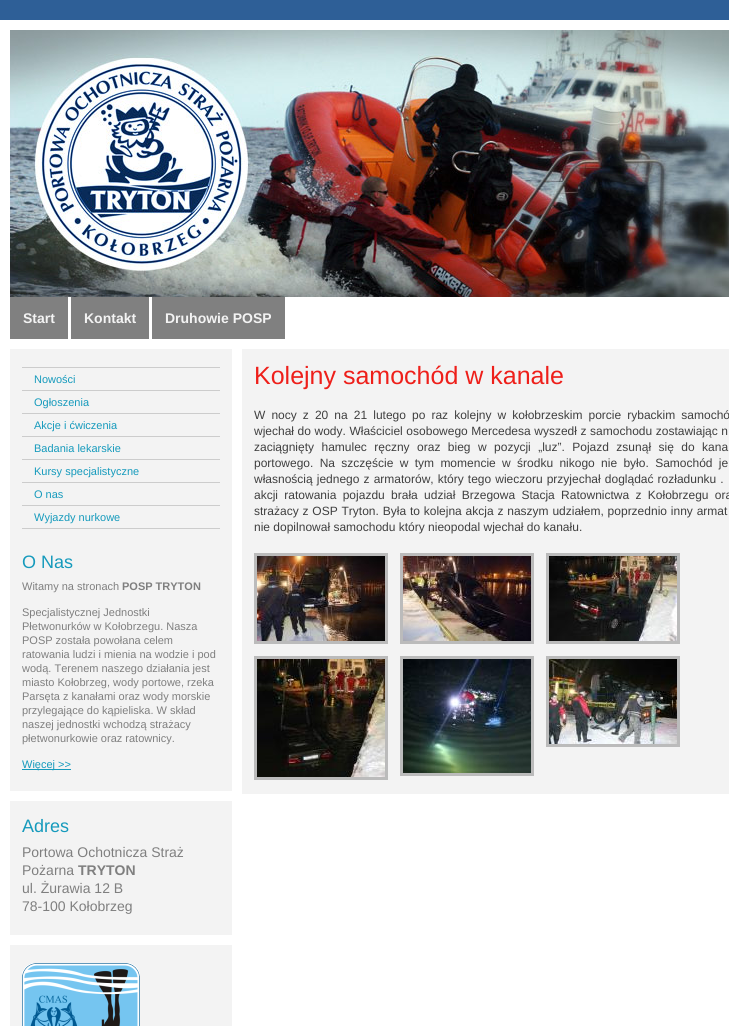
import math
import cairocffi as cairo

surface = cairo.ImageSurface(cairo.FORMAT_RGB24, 729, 1026)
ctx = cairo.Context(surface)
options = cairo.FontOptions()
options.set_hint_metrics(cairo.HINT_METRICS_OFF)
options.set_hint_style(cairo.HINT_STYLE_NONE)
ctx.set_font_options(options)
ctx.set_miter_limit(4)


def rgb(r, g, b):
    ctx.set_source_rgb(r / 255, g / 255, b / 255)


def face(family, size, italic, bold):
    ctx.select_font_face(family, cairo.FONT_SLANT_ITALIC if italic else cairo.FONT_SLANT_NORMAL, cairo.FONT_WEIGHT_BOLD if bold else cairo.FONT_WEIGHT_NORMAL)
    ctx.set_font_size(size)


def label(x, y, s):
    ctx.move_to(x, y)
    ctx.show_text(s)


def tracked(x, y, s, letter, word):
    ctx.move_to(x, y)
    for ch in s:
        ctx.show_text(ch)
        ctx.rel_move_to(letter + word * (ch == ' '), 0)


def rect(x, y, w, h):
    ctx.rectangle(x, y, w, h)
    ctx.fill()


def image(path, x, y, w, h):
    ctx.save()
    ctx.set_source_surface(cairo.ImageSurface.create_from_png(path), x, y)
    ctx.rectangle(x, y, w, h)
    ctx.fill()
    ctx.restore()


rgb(46, 95, 151)
ctx.paint()
rgb(255, 255, 255)
rect(0, 20, 729, 1006)
image('image0.png', 10, 30, 719, 267)
rgb(128, 128, 128)
rect(10, 297, 58, 42)
face('Liberation Sans', 14, 0, 1)
rgb(243, 243, 243)
label(23, 323, 'Start')
rgb(128, 128, 128)
rect(71, 297, 78, 42)
rgb(243, 243, 243)
label(84, 323, 'Kontakt')
rgb(128, 128, 128)
rect(152, 297, 133, 42)
rgb(243, 243, 243)
label(165, 323, 'Druhowie POSP')
rect(10, 349, 222, 442)
rgb(204, 204, 204)
rect(22, 367, 198, 1)
rect(22, 390, 198, 1)
face('Liberation Sans', 11, 0, 0)
rgb(21, 154, 188)
label(34, 383, 'Nowości')
rgb(204, 204, 204)
rect(22, 413, 198, 1)
rgb(21, 154, 188)
label(34, 406, 'Ogłoszenia')
rgb(204, 204, 204)
rect(22, 436, 198, 1)
rgb(21, 154, 188)
label(34, 429, 'Akcje i ćwiczenia')
rgb(204, 204, 204)
rect(22, 459, 198, 1)
rgb(21, 154, 188)
label(34, 452, 'Badania lekarskie')
rgb(204, 204, 204)
rect(22, 482, 198, 1)
rgb(21, 154, 188)
label(34, 475, 'Kursy specjalistyczne')
rgb(204, 204, 204)
rect(22, 505, 198, 1)
rgb(21, 154, 188)
label(34, 498, 'O nas')
rgb(204, 204, 204)
rect(22, 528, 198, 1)
rgb(21, 154, 188)
label(34, 521, 'Wyjazdy nurkowe')
face('Liberation Sans', 18, 0, 0)
label(22, 568, 'O Nas')
face('Liberation Sans', 11, 0, 0)
rgb(127, 127, 127)
label(22, 590, 'Witamy na stronach')
face('Liberation Sans', 11, 0, 1)
label(122, 590, 'POSP TRYTON')
face('Liberation Sans', 11, 0, 0)
label(22, 616, 'Specjalistycznej Jednostki')
label(22, 630, 'Płetwonurków w Kołobrzegu. Nasza')
label(22, 644, 'POSP została powołana celem')
label(22, 658, 'ratowania ludzi i mienia na wodzie i pod')
label(22, 672, 'wodą. Terenem naszego działania jest')
label(22, 686, 'miasto Kołobrzeg, wody portowe, rzeka')
label(22, 700, 'Parsęta z kanałami oraz wody morskie')
label(22, 714, 'przylegające do kąpieliska. W skład')
label(22, 728, 'naszej jednostki wchodzą strażacy')
label(22, 742, 'płetwonurkowie oraz ratownicy.')
rgb(21, 154, 188)
rect(22, 769, 49, 1)
label(22, 768, 'Więcej >>')
rgb(243, 243, 243)
rect(10, 801, 222, 134)
face('Liberation Sans', 18, 0, 0)
rgb(21, 154, 188)
label(22, 832, 'Adres')
face('Liberation Sans', 14, 0, 0)
rgb(127, 127, 127)
label(22, 857, 'Portowa Ochotnicza Straż')
label(22, 875, 'Pożarna')
face('Liberation Sans', 14, 0, 1)
label(78, 875, 'TRYTON')
face('Liberation Sans', 14, 0, 0)
label(22, 893, 'ul. Żurawia 12 B')
label(22, 911, '78-100 Kołobrzeg')
rgb(243, 243, 243)
rect(10, 945, 222, 81)
image('image1.png', 22, 963, 118, 63)
rect(242, 349, 487, 445)
face('Liberation Sans', 25, 0, 0)
rgb(238, 31, 26)
label(254, 384, 'Kolejny samochód w kanale')
face('Liberation Sans', 12, 0, 0)
rgb(63, 63, 63)
tracked(254, 419, 'W nocy z 20 na 21 lutego po raz kolejny w kołobrzeskim porcie rybackim samochó', 0, 2.75)
tracked(254, 435, 'wjechał do wody. Właściciel osobowego Mercedesa wyszedł z samochodu zostawiając n', 0, 0.25)
tracked(254, 451, 'zaciągnięty hamulec ręczny oraz bieg w pozycji „luz”. Pojazd zsunął się do kana', 0, 4.1)
tracked(254, 467, 'portowego. Na szczęście w tym momencie w środku nikogo nie było. Samochód je', 0, 3)
tracked(254, 483, 'własnością jednego z armatorów, który tego wieczoru przyjechał doglądać rozładunku .', 0, 0.75)
tracked(254, 499, 'akcji ratowania pojazdu brała udział Brzegowa Stacja Ratownictwa z Kołobrzegu ora', 0, 3)
tracked(254, 515, 'strażacy z OSP Tryton. Była to kolejna akcja z naszym udziałem, poprzednio inny armat', 0, 0.5)
label(254, 531, 'nie dopilnował samochodu który nieopodal wjechał do kanału.')
ctx.rectangle(255.5, 554.5, 131, 88)
rgb(187, 187, 187)
ctx.set_line_width(3)
ctx.stroke()
image('image2.png', 257, 556, 128, 85)
ctx.rectangle(401.5, 554.5, 131, 88)
ctx.stroke()
image('image3.png', 403, 556, 128, 85)
ctx.rectangle(547.5, 554.5, 131, 88)
ctx.stroke()
image('image4.png', 549, 556, 128, 85)
ctx.rectangle(255.5, 657.5, 131, 121)
ctx.stroke()
image('image5.png', 257, 659, 128, 118)
ctx.rectangle(401.5, 657.5, 131, 117)
ctx.stroke()
image('image6.png', 403, 659, 128, 114)
ctx.rectangle(547.5, 657.5, 131, 88)
ctx.stroke()
image('image7.png', 549, 659, 128, 85)
surface.write_to_png('render.png')
